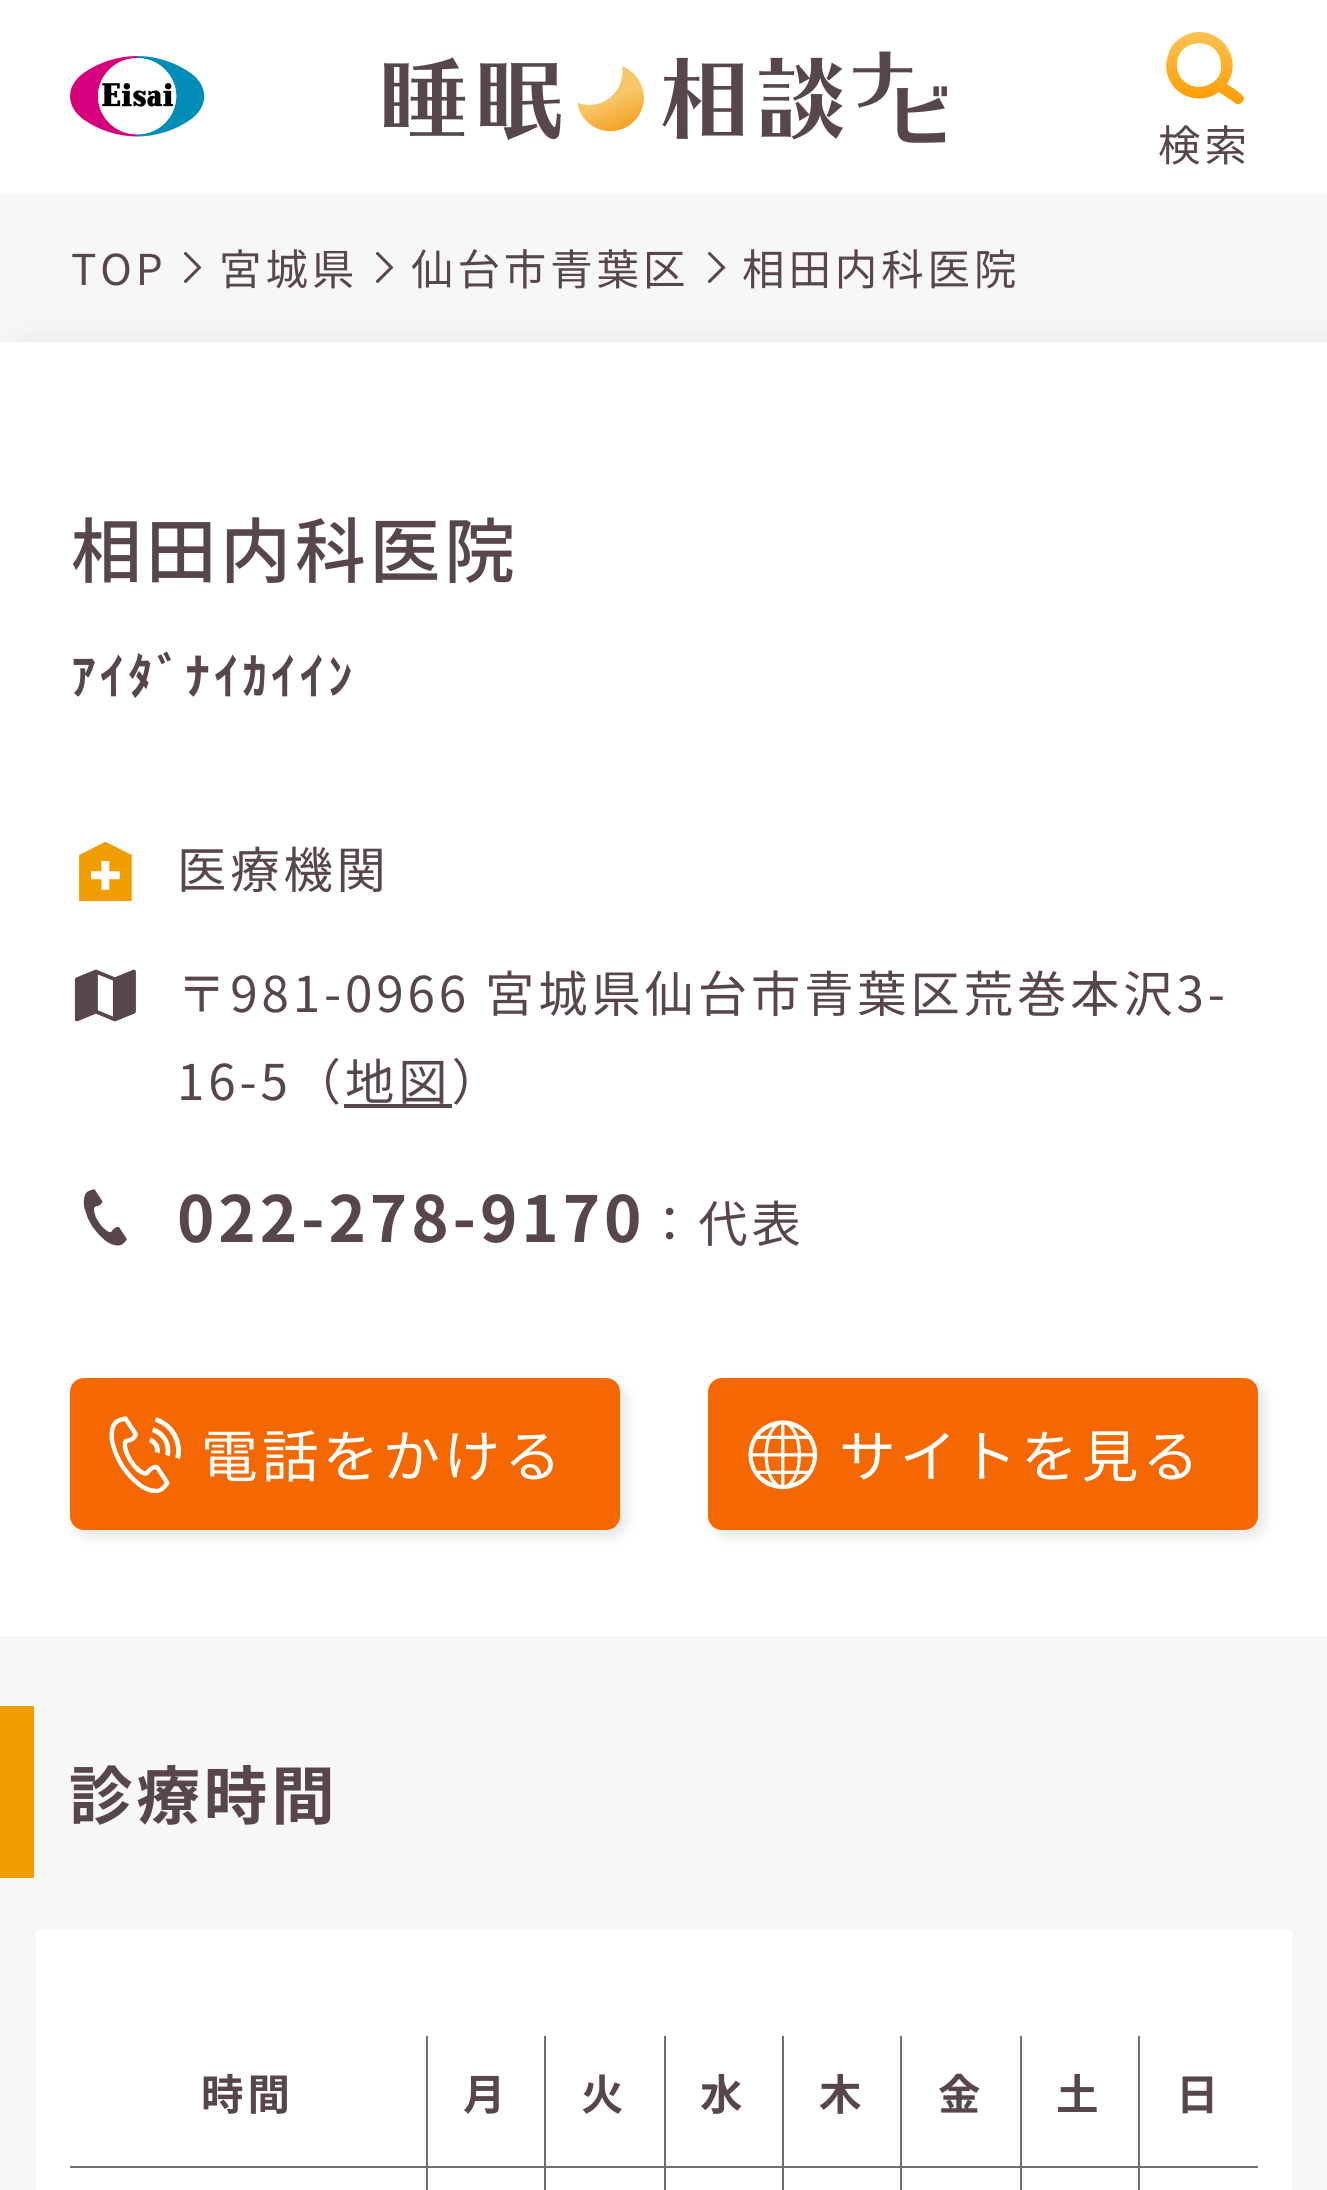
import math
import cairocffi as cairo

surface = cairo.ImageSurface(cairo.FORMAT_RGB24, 1327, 2190)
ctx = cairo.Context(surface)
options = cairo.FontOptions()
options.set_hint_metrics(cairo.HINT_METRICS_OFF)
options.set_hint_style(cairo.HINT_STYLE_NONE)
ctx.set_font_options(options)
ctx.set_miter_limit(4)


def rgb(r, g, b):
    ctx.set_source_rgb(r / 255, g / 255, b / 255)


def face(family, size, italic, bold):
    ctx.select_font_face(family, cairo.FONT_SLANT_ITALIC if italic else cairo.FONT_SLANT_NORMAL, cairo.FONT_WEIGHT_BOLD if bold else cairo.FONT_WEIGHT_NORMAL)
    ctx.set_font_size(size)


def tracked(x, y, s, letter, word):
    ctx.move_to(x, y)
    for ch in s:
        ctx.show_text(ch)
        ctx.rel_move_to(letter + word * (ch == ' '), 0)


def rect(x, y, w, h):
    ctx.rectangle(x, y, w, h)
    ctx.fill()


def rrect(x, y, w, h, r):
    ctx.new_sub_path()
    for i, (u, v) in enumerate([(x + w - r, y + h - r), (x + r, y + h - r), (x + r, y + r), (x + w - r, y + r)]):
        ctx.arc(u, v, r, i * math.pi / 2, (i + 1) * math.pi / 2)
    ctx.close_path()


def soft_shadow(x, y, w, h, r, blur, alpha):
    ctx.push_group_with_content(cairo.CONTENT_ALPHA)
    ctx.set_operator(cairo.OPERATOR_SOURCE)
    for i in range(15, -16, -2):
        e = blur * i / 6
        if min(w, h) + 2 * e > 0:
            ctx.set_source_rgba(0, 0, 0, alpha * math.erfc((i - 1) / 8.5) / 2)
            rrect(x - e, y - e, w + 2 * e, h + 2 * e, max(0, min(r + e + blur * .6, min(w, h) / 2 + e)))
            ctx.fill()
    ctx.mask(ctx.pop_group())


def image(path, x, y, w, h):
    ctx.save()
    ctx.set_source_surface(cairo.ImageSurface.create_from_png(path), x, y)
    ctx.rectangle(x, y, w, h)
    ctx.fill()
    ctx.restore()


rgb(247, 247, 247)
ctx.paint()
rgb(255, 255, 255)
rect(0, 0, 1327, 194)
image('image0.png', 70, 56, 135, 81)
image('image1.png', 383, 51, 564, 92)
gradient = cairo.LinearGradient(1205, 32, 1205, 104)
gradient.add_color_stop_rgba(0, 0.992, 0.761, 0.318, 1)
gradient.add_color_stop_rgba(1, 1, 0.616, 0, 1)
ctx.set_source(gradient)
ctx.new_path()
ctx.move_to(1235, 103)
ctx.line_to(1219, 92)
ctx.curve_to(1203, 104, 1179, 99, 1170, 81)
ctx.curve_to(1165, 72, 1165, 62, 1169, 53)
ctx.curve_to(1171, 45, 1177, 40, 1184, 36)
ctx.curve_to(1214, 20, 1246, 55, 1227, 84)
ctx.curve_to(1231, 87, 1244, 94, 1244, 99)
ctx.curve_to(1243, 103, 1238, 106, 1235, 103)
ctx.close_path()
ctx.move_to(1177, 65)
ctx.curve_to(1177, 71, 1179, 77, 1184, 81)
ctx.curve_to(1197, 94, 1223, 84, 1221, 65)
ctx.curve_to(1220, 35, 1177, 37, 1177, 65)
ctx.close_path()
ctx.fill()
face('Noto Sans JP', 42.5, 0, 0)
rgb(88, 71, 74)
tracked(1158, 161, '検索', 3.9, 0)
rgb(0, 0, 0)
soft_shadow(28, 362, 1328, 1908, 0, 26.5, 0.15)
rgb(88, 71, 74)
tracked(71, 285, 'TOP', 3.9, 0)
image('image2.png', 184, 252, 18, 31)
tracked(219, 285, '宮城県', 3.9, 0)
image('image3.png', 376, 252, 18, 31)
tracked(411, 285, '仙台市青葉区', 3.9, 0)
image('image2.png', 708, 252, 18, 31)
tracked(742, 285, '相田内科医院', 3.9, 0)
rgb(255, 255, 255)
rect(0, 342, 1327, 1294)
face('Noto Sans JP Medium', 70.75, 0, 0)
rgb(88, 71, 74)
tracked(71, 577, '相田内科医院', 3.9, 0)
face('Noto Sans JP', 49.3, 0, 1)
tracked(71, 694, 'ｱｲﾀﾞﾅｲｶｲｲﾝ', 3.9, 0)
image('image4.png', 79, 841, 53, 60)
face('Noto Sans JP', 49.3, 0, 0)
tracked(177, 888, '医療機関', 3.9, 0)
image('image5.png', 74, 969, 62, 53)
tracked(177, 1012, '〒981-0966 宮城県仙台市青葉区荒巻本沢3-', 3.9, 0)
tracked(177, 1100, '16-5（地図）', 3.9, 0)
rect(344, 1104, 108, 4)
image('image6.png', 83, 1189, 44, 57)
face('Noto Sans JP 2', 63.5, 0, 1)
tracked(177, 1242, '022-278-9170', 3.9, 0)
face('Noto Sans JP', 49.3, 0, 0)
tracked(645, 1242, '：代表', 3.9, 0)
rgb(70, 70, 70)
soft_shadow(76, 1384, 550, 152, 14, 7, 0.15)
rgb(245, 104, 0)
rrect(70, 1378, 550, 152, 14)
ctx.fill()
image('image7.png', 109, 1416, 72, 78)
face('Noto Sans JP', 56.75, 0, 0)
rgb(255, 255, 255)
tracked(201, 1477, '電話をかける', 3.9, 0)
rgb(70, 70, 70)
soft_shadow(714, 1384, 550, 152, 14, 7, 0.15)
rgb(245, 104, 0)
rrect(708, 1378, 550, 152, 14)
ctx.fill()
image('image8.png', 748, 1420, 70, 70)
rgb(255, 255, 255)
tracked(839, 1477, 'サイトを見る', 3.9, 0)
rgb(247, 247, 247)
rect(0, 1636, 1327, 554)
rgb(240, 157, 0)
rect(0, 1706, 34, 172)
face('Noto Sans JP 2', 63.5, 0, 1)
rgb(88, 71, 74)
tracked(69, 1819, '診療時間', 3.9, 0)
rgb(255, 255, 255)
rect(36, 1930, 1256, 260)
rgb(112, 112, 112)
rect(1138, 2166, 2, 24)
rect(1138, 2166, 120, 2)
rect(1138, 2036, 2, 132)
rect(1020, 2166, 2, 24)
rect(1020, 2166, 120, 2)
rect(1020, 2036, 2, 132)
rect(900, 2166, 2, 24)
rect(900, 2166, 122, 2)
rect(900, 2036, 2, 132)
rect(782, 2166, 2, 24)
rect(782, 2166, 120, 2)
rect(782, 2036, 2, 132)
rect(664, 2166, 2, 24)
rect(664, 2166, 120, 2)
rect(664, 2036, 2, 132)
rect(544, 2166, 2, 24)
rect(544, 2166, 122, 2)
rect(544, 2036, 2, 132)
rect(426, 2166, 2, 24)
rect(426, 2166, 120, 2)
rect(426, 2036, 2, 132)
rect(70, 2166, 358, 2)
face('Noto Sans JP 2', 42.5, 0, 1)
rgb(88, 71, 74)
tracked(201, 2110, '時間', 3.9, 0)
tracked(463, 2110, '月', 3.9, 0)
tracked(581, 2110, '火', 3.9, 0)
tracked(700, 2110, '水', 3.9, 0)
tracked(819, 2110, '木', 3.9, 0)
tracked(938, 2110, '金', 3.9, 0)
tracked(1056, 2110, '土', 3.9, 0)
tracked(1176, 2110, '日', 3.9, 0)
surface.write_to_png('render.png')
